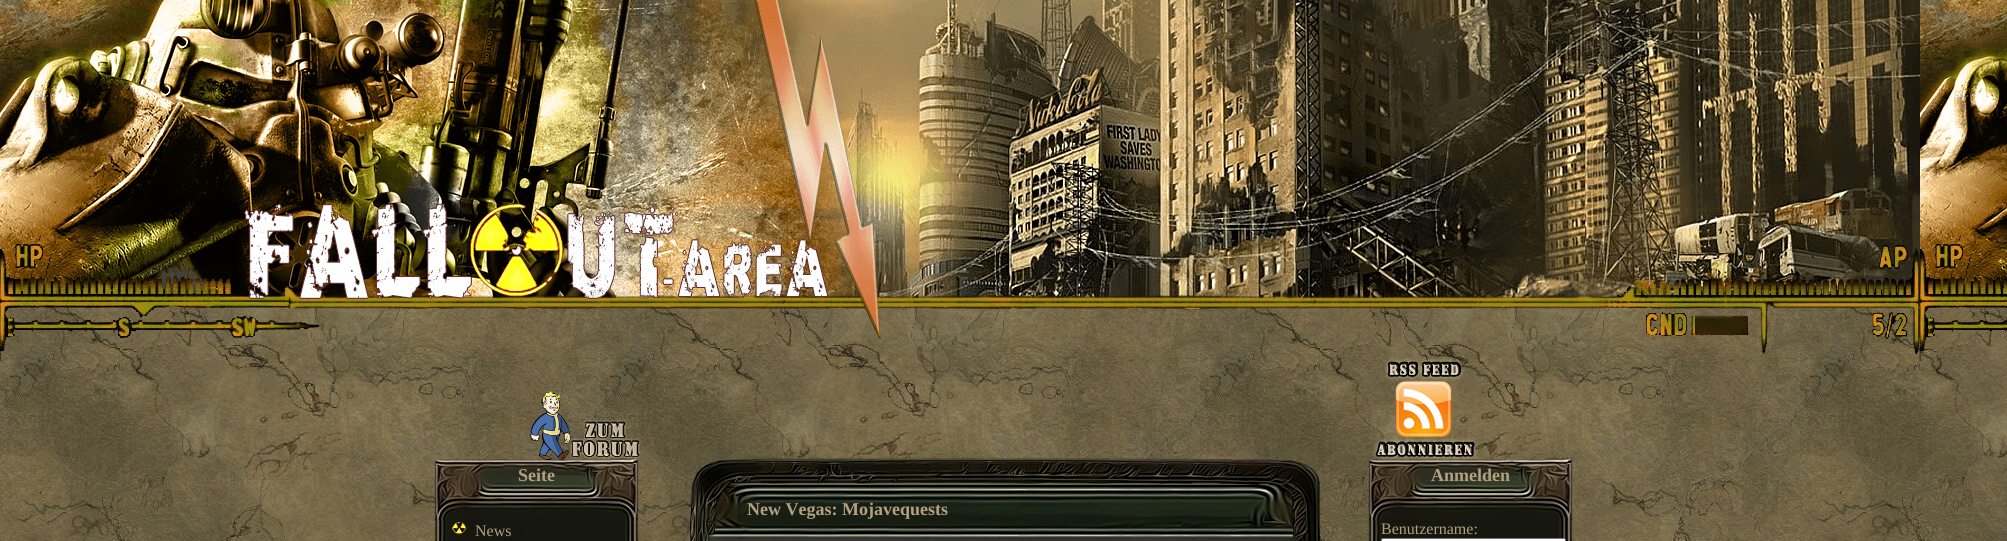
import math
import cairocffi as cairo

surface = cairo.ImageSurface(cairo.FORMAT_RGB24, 2007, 541)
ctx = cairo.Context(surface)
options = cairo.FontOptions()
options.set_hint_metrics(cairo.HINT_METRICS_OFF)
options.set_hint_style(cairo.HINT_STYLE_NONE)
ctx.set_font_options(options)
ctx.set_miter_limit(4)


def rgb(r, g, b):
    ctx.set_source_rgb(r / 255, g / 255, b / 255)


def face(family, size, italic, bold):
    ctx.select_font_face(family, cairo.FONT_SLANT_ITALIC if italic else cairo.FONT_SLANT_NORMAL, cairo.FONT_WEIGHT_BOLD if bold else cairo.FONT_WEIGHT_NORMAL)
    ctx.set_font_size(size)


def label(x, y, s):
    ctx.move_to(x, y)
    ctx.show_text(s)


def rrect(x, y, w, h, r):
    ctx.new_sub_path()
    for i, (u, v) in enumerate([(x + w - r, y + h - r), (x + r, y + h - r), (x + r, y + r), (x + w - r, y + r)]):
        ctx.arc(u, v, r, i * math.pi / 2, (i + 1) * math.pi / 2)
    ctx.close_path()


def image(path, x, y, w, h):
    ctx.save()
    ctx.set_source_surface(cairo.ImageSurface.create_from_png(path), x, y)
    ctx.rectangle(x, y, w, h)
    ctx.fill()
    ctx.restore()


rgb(255, 255, 255)
ctx.paint()
image('image0.png', 0, 303, 2007, 238)
image('image1.png', 0, 0, 2007, 361)
image('image2.png', 244, 203, 584, 96)
image('image3.png', 530, 391, 111, 70)
image('image4.png', 1373, 358, 105, 102)
image('image5.png', 434, 457, 206, 63)
face('Liberation Serif', 18, 0, 1)
rgb(180, 160, 127)
label(518, 481, 'Seite')
image('image6.png', 434, 520, 205, 21)
image('image7.png', 452, 522, 15, 12)
face('Liberation Serif', 16, 0, 0)
label(475, 536, 'News')
image('image8.png', 688, 457, 633, 84)
face('Liberation Serif', 18, 0, 1)
label(747, 515, 'New Vegas: Mojavequests')
image('image9.png', 1368, 457, 205, 63)
label(1431, 481, 'Anmelden')
image('image10.png', 1368, 520, 205, 21)
face('Liberation Serif', 16, 0, 0)
label(1381, 534, 'Benutzername:')
rgb(255, 255, 255)
rrect(1381.5, 538.5, 184, 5, 1.5)
ctx.fill_preserve()
rgb(118, 118, 118)
ctx.set_line_width(1)
ctx.stroke()
surface.write_to_png('render.png')
